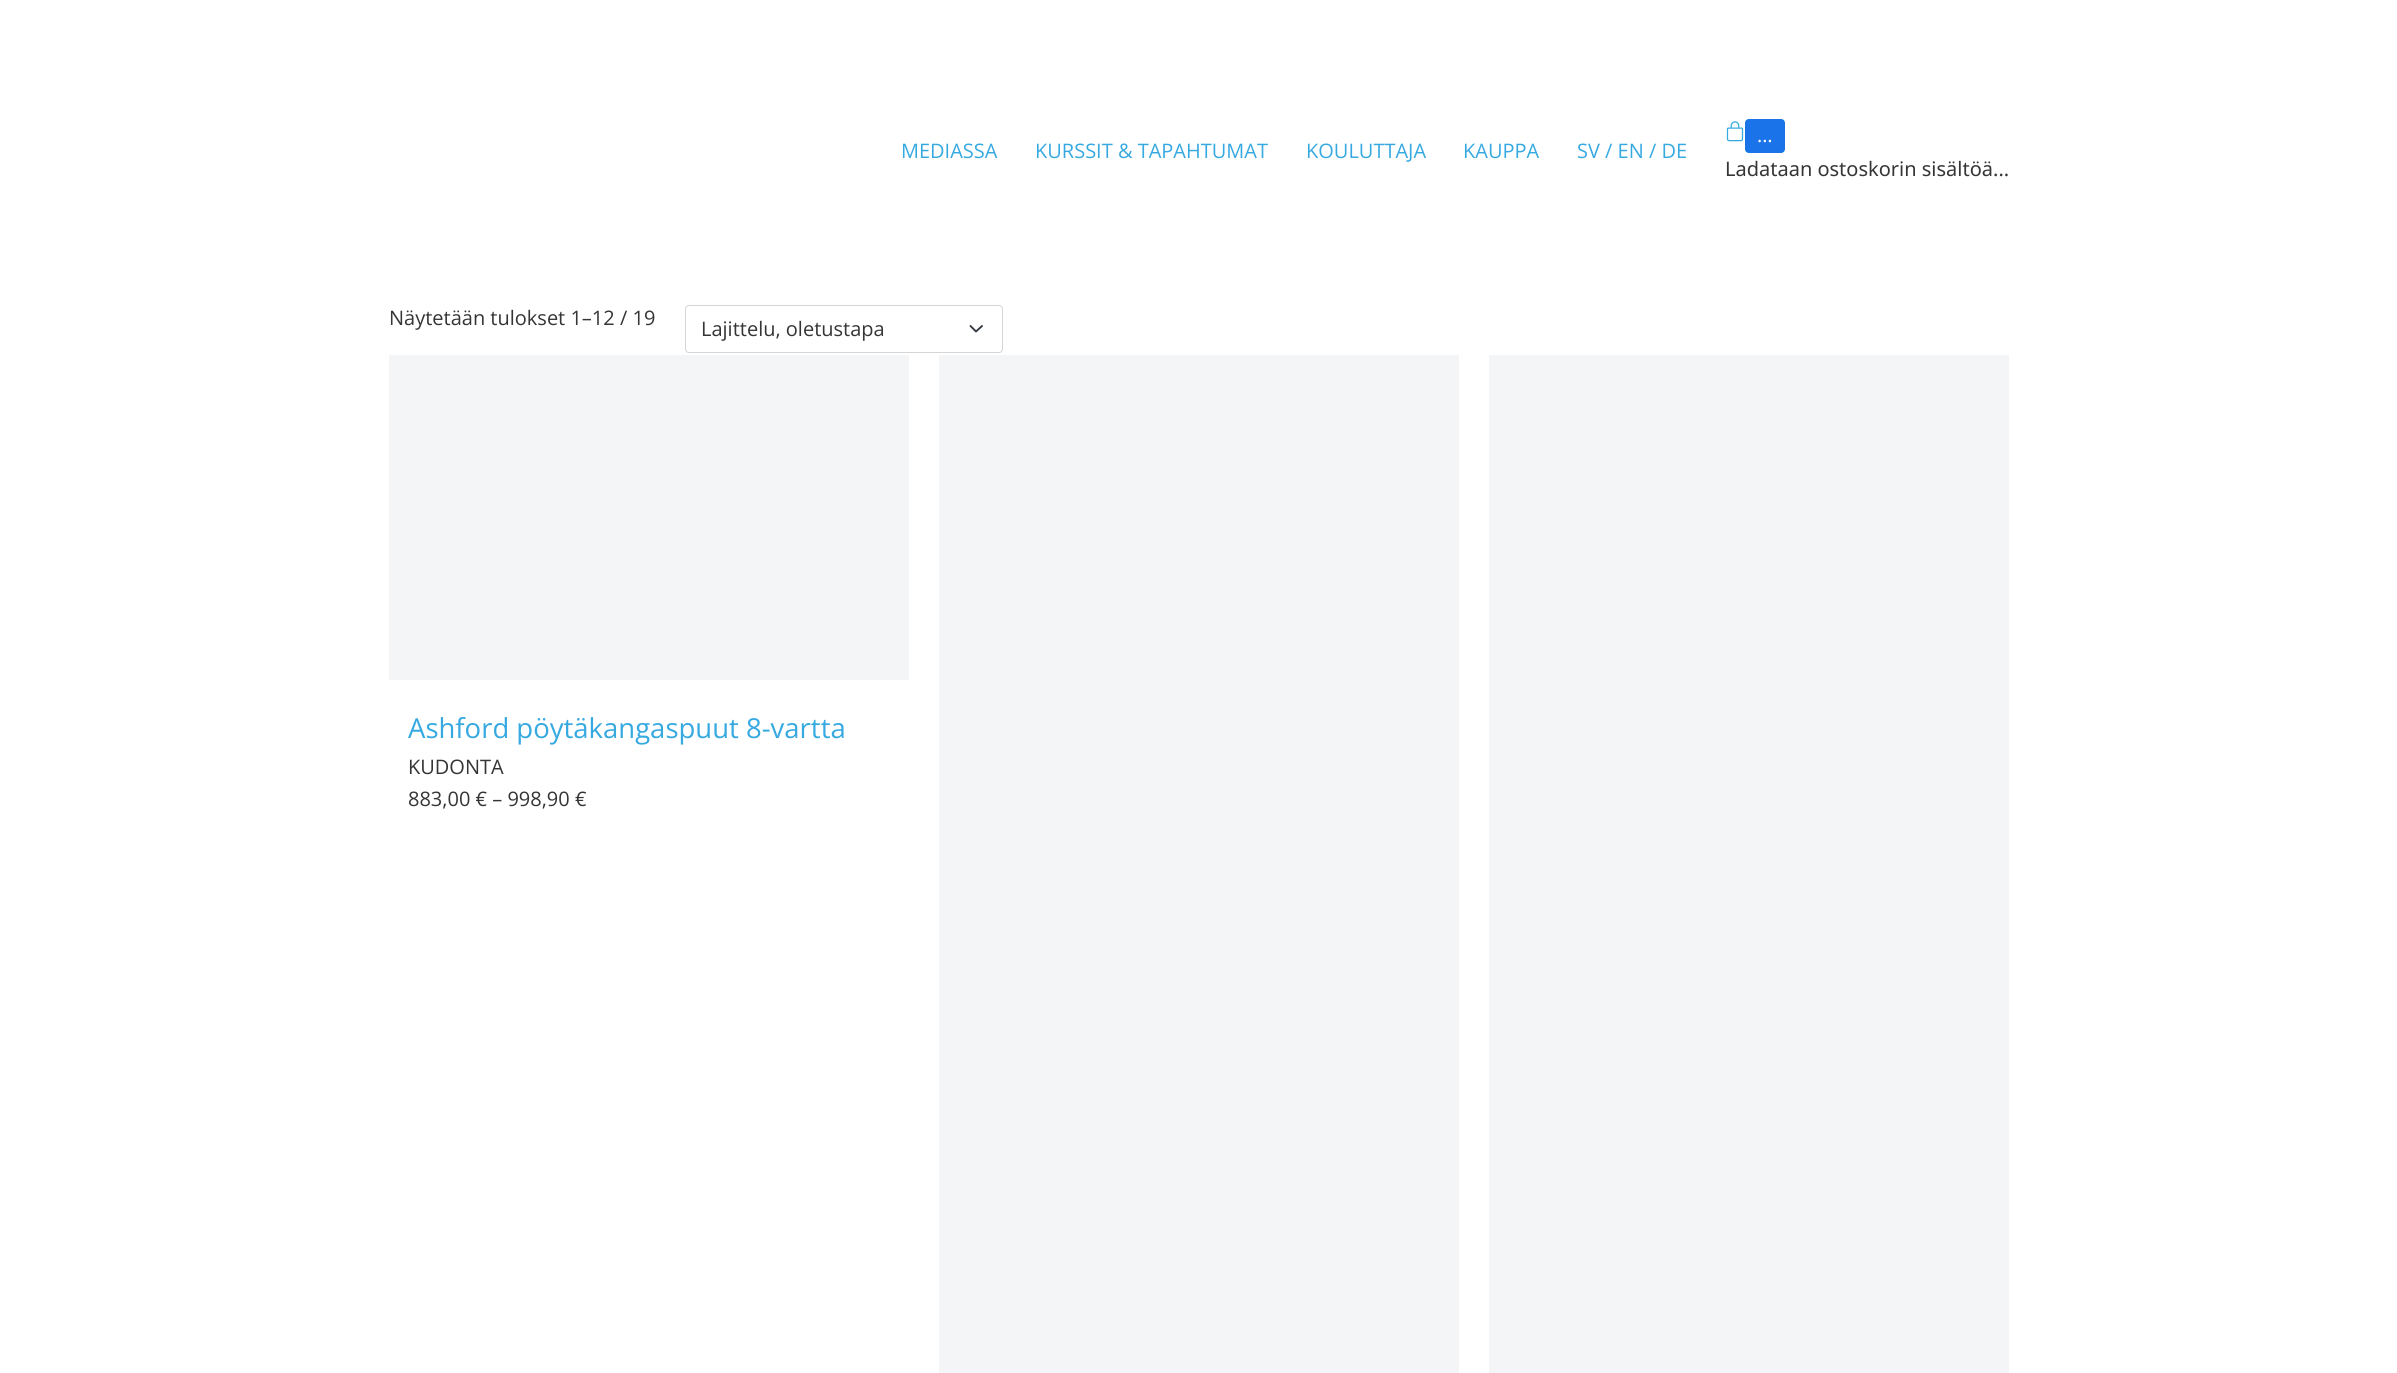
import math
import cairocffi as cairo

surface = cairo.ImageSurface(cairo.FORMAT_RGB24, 2397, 1373)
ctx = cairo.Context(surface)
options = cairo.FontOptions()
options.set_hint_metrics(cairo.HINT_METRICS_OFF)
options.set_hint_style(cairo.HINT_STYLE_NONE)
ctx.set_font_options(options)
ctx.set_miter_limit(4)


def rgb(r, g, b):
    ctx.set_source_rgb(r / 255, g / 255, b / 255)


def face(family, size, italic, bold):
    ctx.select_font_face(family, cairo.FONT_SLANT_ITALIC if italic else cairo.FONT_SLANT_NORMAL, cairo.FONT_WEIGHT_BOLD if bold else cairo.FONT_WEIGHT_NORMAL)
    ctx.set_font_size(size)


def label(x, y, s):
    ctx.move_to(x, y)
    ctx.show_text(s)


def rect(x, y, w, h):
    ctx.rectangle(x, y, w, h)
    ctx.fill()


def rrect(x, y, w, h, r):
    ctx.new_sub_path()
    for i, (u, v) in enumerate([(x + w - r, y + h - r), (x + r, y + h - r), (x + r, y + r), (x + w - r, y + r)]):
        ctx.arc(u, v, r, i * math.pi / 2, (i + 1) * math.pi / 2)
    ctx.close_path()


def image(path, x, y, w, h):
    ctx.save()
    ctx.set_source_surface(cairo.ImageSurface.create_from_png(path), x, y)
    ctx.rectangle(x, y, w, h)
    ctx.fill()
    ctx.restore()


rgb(255, 255, 255)
ctx.paint()
face('Open Sans', 20, 0, 0)
rgb(54, 169, 225)
label(901, 158, 'MEDIASSA')
label(1035, 158, 'KURSSIT & TAPAHTUMAT')
label(1306, 158, 'KOULUTTAJA')
label(1463, 158, 'KAUPPA')
label(1577, 158, 'SV / EN / DE')
image('image0.png', 1726, 121, 18, 21)
rgb(26, 115, 232)
rrect(1745, 119, 40, 34, 4)
ctx.fill()
rgb(255, 255, 255)
label(1757, 142, '…')
face('Noto Sans', 20, 0, 0)
rgb(53, 53, 53)
label(1725, 176, 'Ladataan ostoskorin sisältöä...')
face('Open Sans', 20, 0, 0)
label(389, 325, 'Näytetään tulokset 1–12 / 19')
ctx.new_path()
ctx.move_to(970.5, 326)
ctx.line_to(976, 331.5)
ctx.line_to(982, 326)
rgb(52, 58, 64)
ctx.set_line_width(1.9)
ctx.set_line_cap(cairo.LINE_CAP_ROUND)
ctx.set_line_join(cairo.LINE_JOIN_ROUND)
ctx.stroke()
rrect(685.5, 305.5, 317, 47, 3.5)
rgb(214, 214, 214)
ctx.set_line_width(1)
ctx.set_line_cap(cairo.LINE_CAP_BUTT)
ctx.set_line_join(cairo.LINE_JOIN_MITER)
ctx.stroke()
rgb(53, 53, 53)
label(701, 336, 'Lajittelu, oletustapa')
rgb(243, 245, 247)
rect(389, 355, 520, 325)
face('Open Sans', 27.5, 0, 0)
rgb(54, 169, 225)
label(408, 738, 'Ashford pöytäkangaspuut 8-vartta')
face('Open Sans', 20, 0, 0)
rgb(53, 53, 53)
label(408, 774, 'KUDONTA')
label(408, 806, '883,00 € – 998,90 €')
rgb(243, 245, 247)
rect(939, 355, 520, 1018)
rect(1489, 355, 520, 1018)
surface.write_to_png('render.png')
